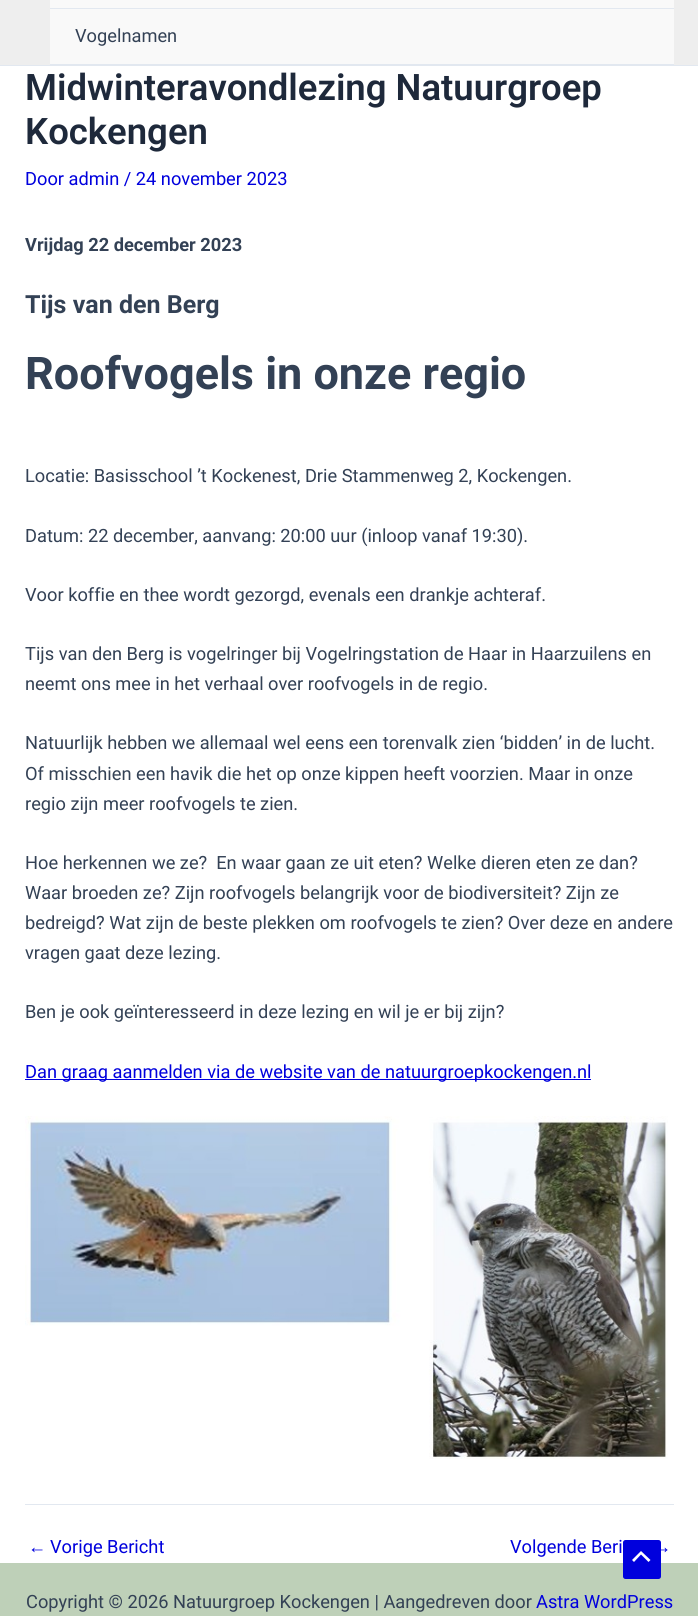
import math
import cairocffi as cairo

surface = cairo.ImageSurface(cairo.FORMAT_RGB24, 698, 1616)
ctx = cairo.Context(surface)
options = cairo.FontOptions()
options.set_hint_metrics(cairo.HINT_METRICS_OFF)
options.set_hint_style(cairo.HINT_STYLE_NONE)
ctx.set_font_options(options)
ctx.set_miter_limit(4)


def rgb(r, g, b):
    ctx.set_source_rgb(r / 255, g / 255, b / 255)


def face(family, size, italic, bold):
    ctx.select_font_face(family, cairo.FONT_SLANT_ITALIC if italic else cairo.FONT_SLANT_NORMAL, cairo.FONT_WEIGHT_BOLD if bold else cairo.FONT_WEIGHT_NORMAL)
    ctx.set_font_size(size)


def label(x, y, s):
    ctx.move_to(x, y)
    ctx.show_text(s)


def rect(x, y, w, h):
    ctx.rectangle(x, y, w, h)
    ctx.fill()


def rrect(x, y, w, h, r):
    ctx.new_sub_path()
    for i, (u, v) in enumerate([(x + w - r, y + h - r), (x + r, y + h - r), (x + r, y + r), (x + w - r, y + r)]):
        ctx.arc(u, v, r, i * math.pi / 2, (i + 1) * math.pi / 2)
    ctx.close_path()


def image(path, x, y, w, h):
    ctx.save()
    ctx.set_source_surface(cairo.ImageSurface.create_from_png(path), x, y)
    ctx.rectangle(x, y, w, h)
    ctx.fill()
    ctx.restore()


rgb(255, 255, 255)
ctx.paint()
rgb(238, 238, 238)
rect(0, 0, 698, 65)
rgb(226, 232, 240)
rect(0, 65, 698, 1)
rgb(249, 249, 249)
rect(50, 0, 624, 64)
rgb(226, 232, 240)
rect(50, 8, 624, 1)
rect(50, 64, 624, 1)
face('Roboto', 18.25, 0, 0)
rgb(51, 65, 85)
label(75, 42, 'Vogelnamen')
face('Roboto SemiBold', 36.5, 0, 0)
rgb(30, 41, 59)
label(25, 100, 'Midwinteravondlezing Natuurgroep')
label(25, 144, 'Kockengen')
face('Roboto', 18.25, 0, 0)
rgb(0, 0, 221)
label(25, 185, 'Door admin / 24 november 2023')
face('Roboto', 18.25, 0, 1)
rgb(51, 65, 85)
label(25, 251, 'Vrijdag 22 december 2023')
face('Roboto', 25, 0, 1)
label(25, 313, 'Tijs van den Berg')
face('Roboto', 45, 0, 1)
label(25, 389, 'Roofvogels in onze regio')
face('Roboto', 18.25, 0, 0)
label(25, 482, 'Locatie: Basisschool ’t Kockenest, Drie Stammenweg 2, Kockengen.')
label(25, 542, 'Datum: 22 december, aanvang: 20:00 uur (inloop vanaf 19:30).')
label(25, 601, 'Voor koffie en thee wordt gezorgd, evenals een drankje achteraf.')
label(25, 660, 'Tijs van den Berg is vogelringer bij Vogelringstation de Haar in Haarzuilens en')
label(25, 690, 'neemt ons mee in het verhaal over roofvogels in de regio.')
label(25, 749, 'Natuurlijk hebben we allemaal wel eens een torenvalk zien ‘bidden’ in de lucht.')
label(25, 780, 'Of misschien een havik die het op onze kippen heeft voorzien. Maar in onze')
label(25, 810, 'regio zijn meer roofvogels te zien.')
label(25, 869, 'Hoe herkennen we ze?  En waar gaan ze uit eten? Welke dieren eten ze dan?')
label(25, 899, 'Waar broeden ze? Zijn roofvogels belangrijk voor de biodiversiteit? Zijn ze')
label(25, 929, 'bedreigd? Wat zijn de beste plekken om roofvogels te zien? Over deze en andere')
label(25, 959, 'vragen gaat deze lezing.')
label(25, 1018, 'Ben je ook geïnteresseerd in deze lezing en wil je er bij zijn?')
rgb(0, 0, 221)
rect(25, 1079, 566, 1)
label(25, 1078, 'Dan graag aanmelden via de website van de natuurgroepkockengen.nl')
image('image0.png', 25, 1116, 643, 343)
rgb(226, 232, 240)
rect(25, 1504, 649, 1)
face('Liberation Sans', 18.25, 0, 0)
rgb(0, 0, 221)
label(28, 1553, '←')
face('Roboto', 18.25, 0, 0)
label(50, 1553, 'Vorige Bericht')
label(510, 1553, 'Volgende Beri')
face('Liberation Sans', 18.25, 0, 0)
label(653, 1553, '→')
rgb(190, 208, 184)
rect(0, 1563, 698, 53)
face('Roboto', 18.25, 0, 0)
rgb(51, 65, 85)
label(26, 1608, 'Copyright © 2026 Natuurgroep Kockengen | Aangedreven door')
rgb(0, 0, 221)
label(536, 1608, 'Astra WordPress')
rrect(623, 1540, 38, 39, 2.5)
ctx.fill()
rgb(255, 255, 255)
ctx.new_path()
ctx.move_to(650.5, 1560)
ctx.line_to(641, 1551)
ctx.line_to(632, 1560)
ctx.line_to(634, 1562)
ctx.line_to(641, 1554.5)
ctx.line_to(648.5, 1562)
ctx.close_path()
ctx.fill()
surface.write_to_png('render.png')
